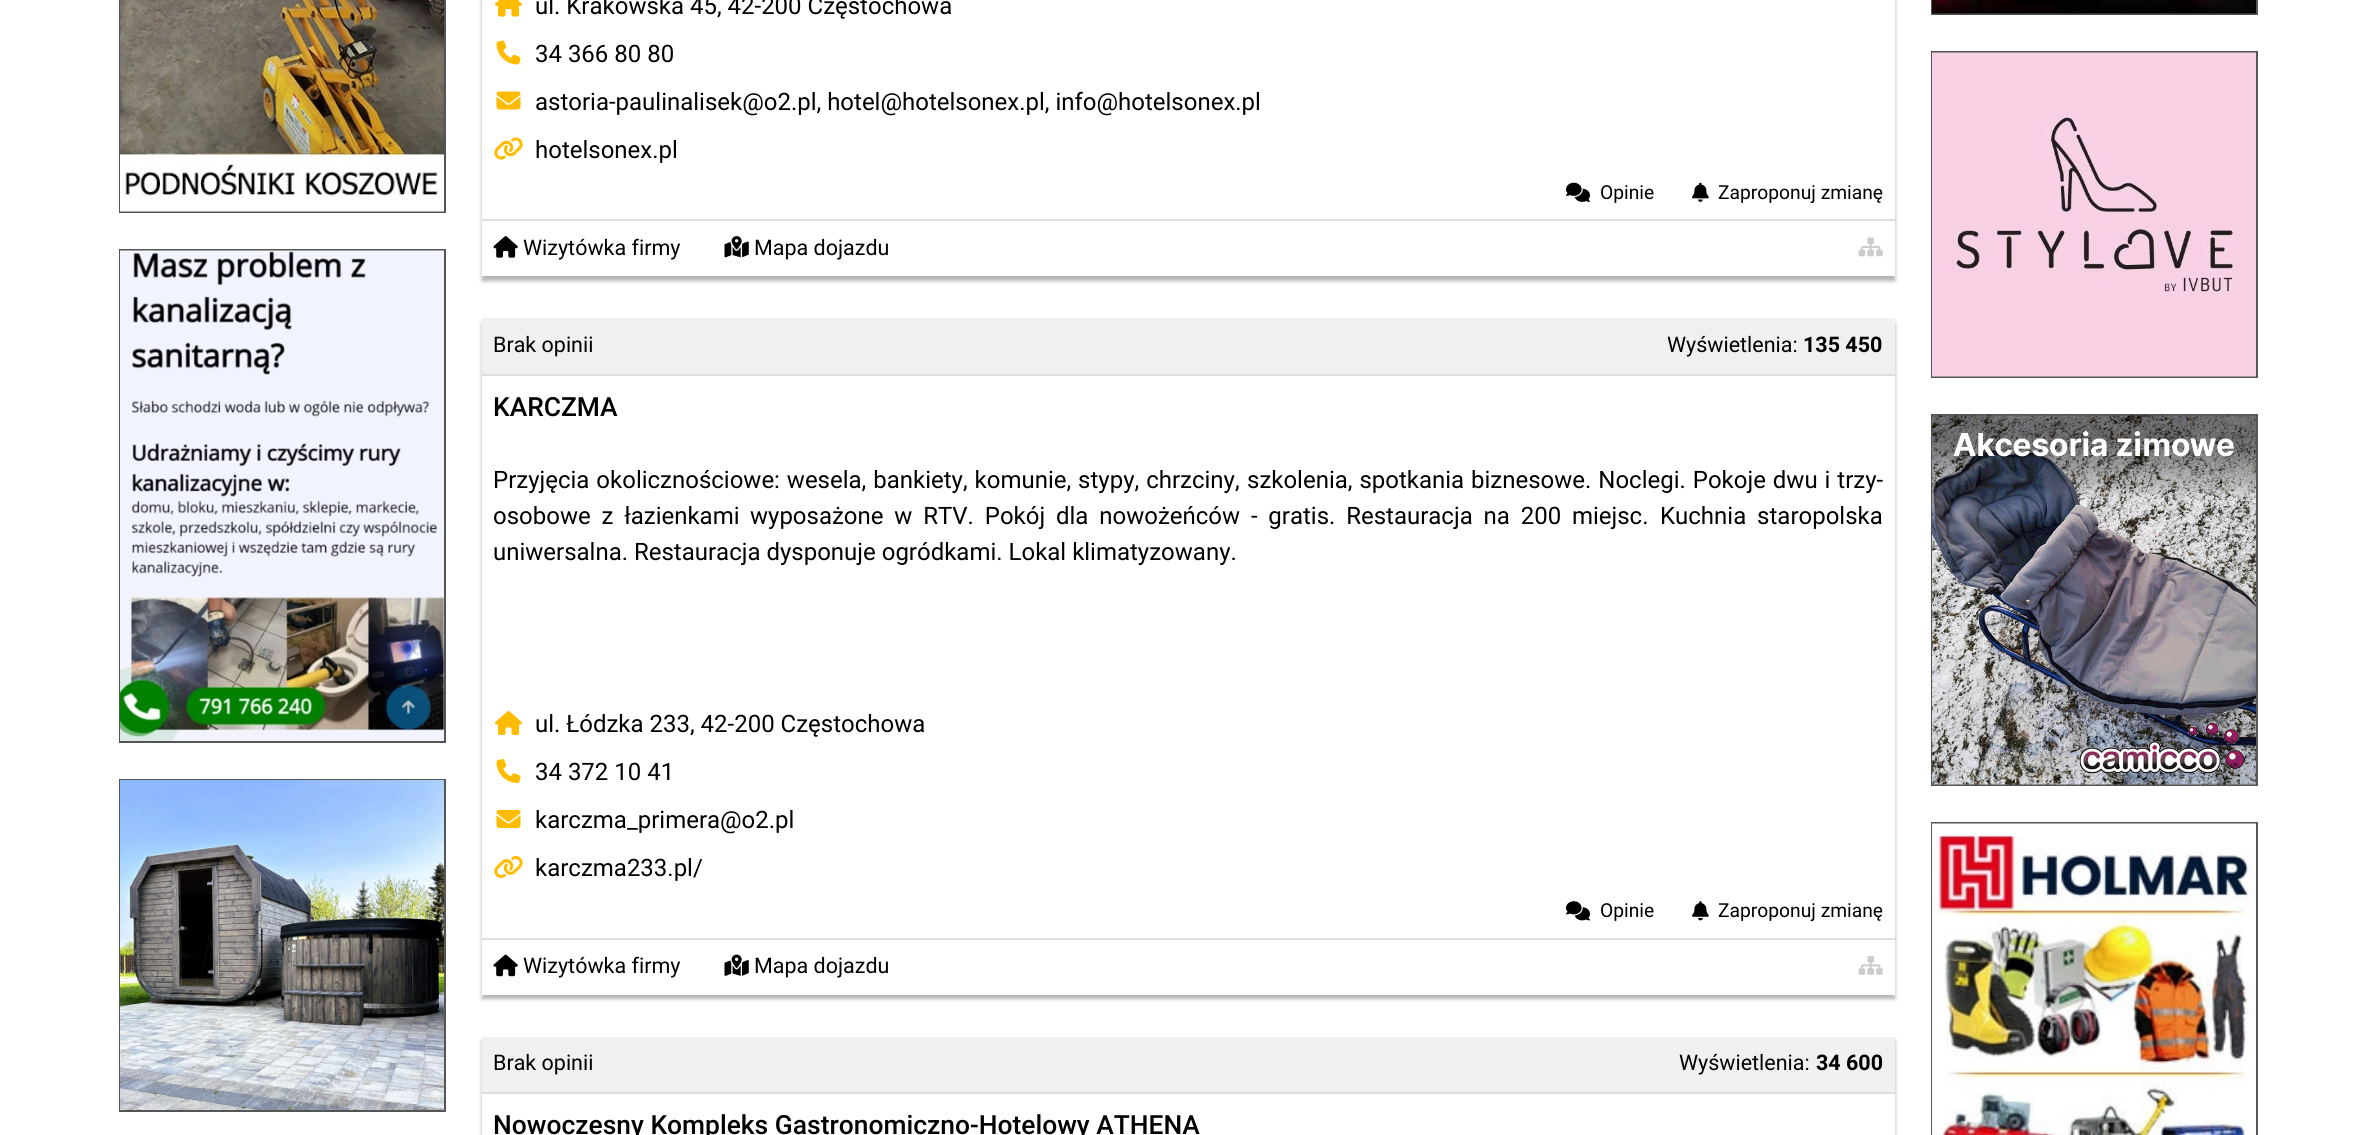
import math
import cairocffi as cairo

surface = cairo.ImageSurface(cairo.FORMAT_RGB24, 2375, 1135)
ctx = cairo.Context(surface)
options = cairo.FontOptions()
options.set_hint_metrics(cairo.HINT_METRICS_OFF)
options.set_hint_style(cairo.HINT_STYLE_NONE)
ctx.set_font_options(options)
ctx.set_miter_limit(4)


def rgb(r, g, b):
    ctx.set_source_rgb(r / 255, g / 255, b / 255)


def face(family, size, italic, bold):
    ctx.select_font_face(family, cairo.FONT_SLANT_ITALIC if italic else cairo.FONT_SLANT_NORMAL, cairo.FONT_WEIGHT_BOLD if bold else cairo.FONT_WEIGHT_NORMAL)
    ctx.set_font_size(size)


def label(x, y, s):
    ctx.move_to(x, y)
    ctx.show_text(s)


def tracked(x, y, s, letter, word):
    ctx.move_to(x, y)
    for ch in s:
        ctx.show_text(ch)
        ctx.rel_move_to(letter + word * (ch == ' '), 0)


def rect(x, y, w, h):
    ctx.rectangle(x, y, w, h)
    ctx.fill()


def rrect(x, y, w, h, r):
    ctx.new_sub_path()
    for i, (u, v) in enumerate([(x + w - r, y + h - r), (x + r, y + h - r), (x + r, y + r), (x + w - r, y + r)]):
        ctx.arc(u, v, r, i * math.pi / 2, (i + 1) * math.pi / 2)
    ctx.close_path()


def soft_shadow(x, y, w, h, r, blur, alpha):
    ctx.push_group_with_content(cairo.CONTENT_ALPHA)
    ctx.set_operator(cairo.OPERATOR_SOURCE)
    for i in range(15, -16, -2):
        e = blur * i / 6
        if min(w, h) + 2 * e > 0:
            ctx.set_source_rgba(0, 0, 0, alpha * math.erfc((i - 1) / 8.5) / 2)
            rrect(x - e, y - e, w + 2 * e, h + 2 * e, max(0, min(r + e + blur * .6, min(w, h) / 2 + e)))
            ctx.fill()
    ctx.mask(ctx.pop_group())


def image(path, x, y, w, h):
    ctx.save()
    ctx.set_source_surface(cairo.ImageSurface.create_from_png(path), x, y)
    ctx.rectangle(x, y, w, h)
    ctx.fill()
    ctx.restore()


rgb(255, 255, 255)
ctx.paint()
ctx.rectangle(120, -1, 325, 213)
rgb(85, 85, 85)
ctx.stroke()
image('image0.png', 120, 0, 324, 212)
ctx.rectangle(120, 250, 325, 492)
ctx.stroke()
image('image1.png', 120, 250, 324, 491)
ctx.rectangle(120, 780, 325, 331)
ctx.stroke()
image('image2.png', 120, 780, 324, 330)
rgb(0, 0, 0)
soft_shadow(482, -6, 1413, 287, 0, 2, 0.3)
rgb(255, 255, 255)
rect(482, 0, 1413, 276)
image('image3.png', 495, 0, 27, 17)
face('Roboto', 24, 0, 0)
rgb(0, 0, 0)
label(535, 14, 'ul. Krakowska 45, 42-200 Częstochowa')
image('image4.png', 496, 40, 25, 25)
label(535, 62, '34 366 80 80')
image('image5.png', 496, 91, 25, 19)
label(535, 110, 'astoria-paulinalisek@o2.pl, hotel@hotelsonex.pl, info@hotelsonex.pl')
image('image6.png', 494, 137, 29, 23)
label(535, 158, 'hotelsonex.pl')
image('image7.png', 1566, 182, 24, 20)
face('Roboto', 19.25, 0, 0)
label(1600, 199, 'Opinie')
image('image8.png', 1692, 182, 17, 20)
label(1718, 199, 'Zaproponuj zmianę')
rgb(222, 222, 222)
rect(482, 219, 1413, 2)
image('image9.png', 493, 236, 25, 22)
face('Roboto', 21.5, 0, 0)
rgb(0, 0, 0)
label(523, 255, 'Wizytówka firmy')
image('image10.png', 724, 236, 25, 22)
label(754, 255, 'Mapa dojazdu')
image('image11.png', 1858, 237, 25, 20)
rgb(0, 0, 0)
soft_shadow(482, 323, 1413, 676, 0, 2, 0.3)
rgb(255, 255, 255)
rect(482, 376, 1413, 619)
rgb(240, 240, 240)
rect(482, 318, 1413, 56)
rgb(0, 0, 0)
label(493, 352, 'Brak opinii')
label(1667, 352, 'Wyświetlenia:')
face('Roboto', 21.5, 0, 1)
label(1803, 352, '135 450')
rgb(222, 222, 222)
rect(482, 374, 1413, 2)
face('Roboto Medium', 26.4, 0, 0)
rgb(0, 0, 0)
label(493, 416, 'KARCZMA')
face('Roboto', 24, 0, 0)
tracked(493, 488, 'Przyjęcia okolicznościowe: wesela, bankiety, komunie, stypy, chrzciny,', 0, 1)
tracked(1247, 488, 'szkolenia, spotkania biznesowe. Noclegi. Pokoje dwu i trzy-', 0, 1)
tracked(493, 524, 'osobowe z łazienkami', 0, 4.9)
tracked(750, 524, 'wyposażone w RTV. Pokój dla nowożeńców - gratis. Restauracja na 200 miejsc.', 0, 4.9)
tracked(1660, 524, 'Kuchnia staropolska', 0, 5)
label(493, 560, 'uniwersalna. Restauracja dysponuje ogródkami. Lokal klimatyzowany.')
image('image12.png', 495, 711, 27, 24)
label(535, 732, 'ul. Łódzka 233, 42-200 Częstochowa')
image('image13.png', 496, 759, 25, 24)
label(535, 780, '34 372 10 41')
image('image14.png', 496, 810, 25, 18)
label(535, 828, 'karczma_primera@o2.pl')
image('image15.png', 494, 856, 29, 22)
label(535, 876, 'karczma233.pl/')
image('image16.png', 1566, 901, 24, 20)
face('Roboto', 19.25, 0, 0)
label(1600, 917, 'Opinie')
image('image17.png', 1692, 901, 17, 20)
label(1718, 917, 'Zaproponuj zmianę')
rgb(222, 222, 222)
rect(482, 938, 1413, 2)
image('image18.png', 493, 954, 25, 23)
face('Roboto', 21.5, 0, 0)
rgb(0, 0, 0)
label(523, 973, 'Wizytówka firmy')
image('image19.png', 724, 954, 25, 22)
label(754, 973, 'Mapa dojazdu')
image('image20.png', 1858, 956, 25, 19)
rgb(0, 0, 0)
soft_shadow(482, 1041, 1413, 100, 0, 2, 0.3)
rgb(255, 255, 255)
rect(482, 1094, 1413, 41)
rgb(240, 240, 240)
rect(482, 1037, 1413, 55)
rgb(0, 0, 0)
label(493, 1070, 'Brak opinii')
label(1679, 1070, 'Wyświetlenia:')
face('Roboto', 21.5, 0, 1)
label(1816, 1070, '34 600')
rgb(222, 222, 222)
rect(482, 1092, 1413, 2)
face('Roboto Medium', 26.4, 0, 0)
rgb(0, 0, 0)
label(493, 1134, 'Nowoczesny Kompleks Gastronomiczno-Hotelowy ATHENA')
ctx.rectangle(1932, -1, 325, 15)
rgb(85, 85, 85)
ctx.stroke()
image('image21.png', 1932, 0, 324, 14)
ctx.rectangle(1932, 52, 325, 325)
ctx.stroke()
image('image22.png', 1932, 52, 324, 325)
ctx.rectangle(1932, 415, 325, 370)
ctx.stroke()
image('image23.png', 1932, 415, 324, 370)
ctx.rectangle(1932, 823, 325, 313)
ctx.stroke()
image('image24.png', 1932, 823, 324, 312)
surface.write_to_png('render.png')
